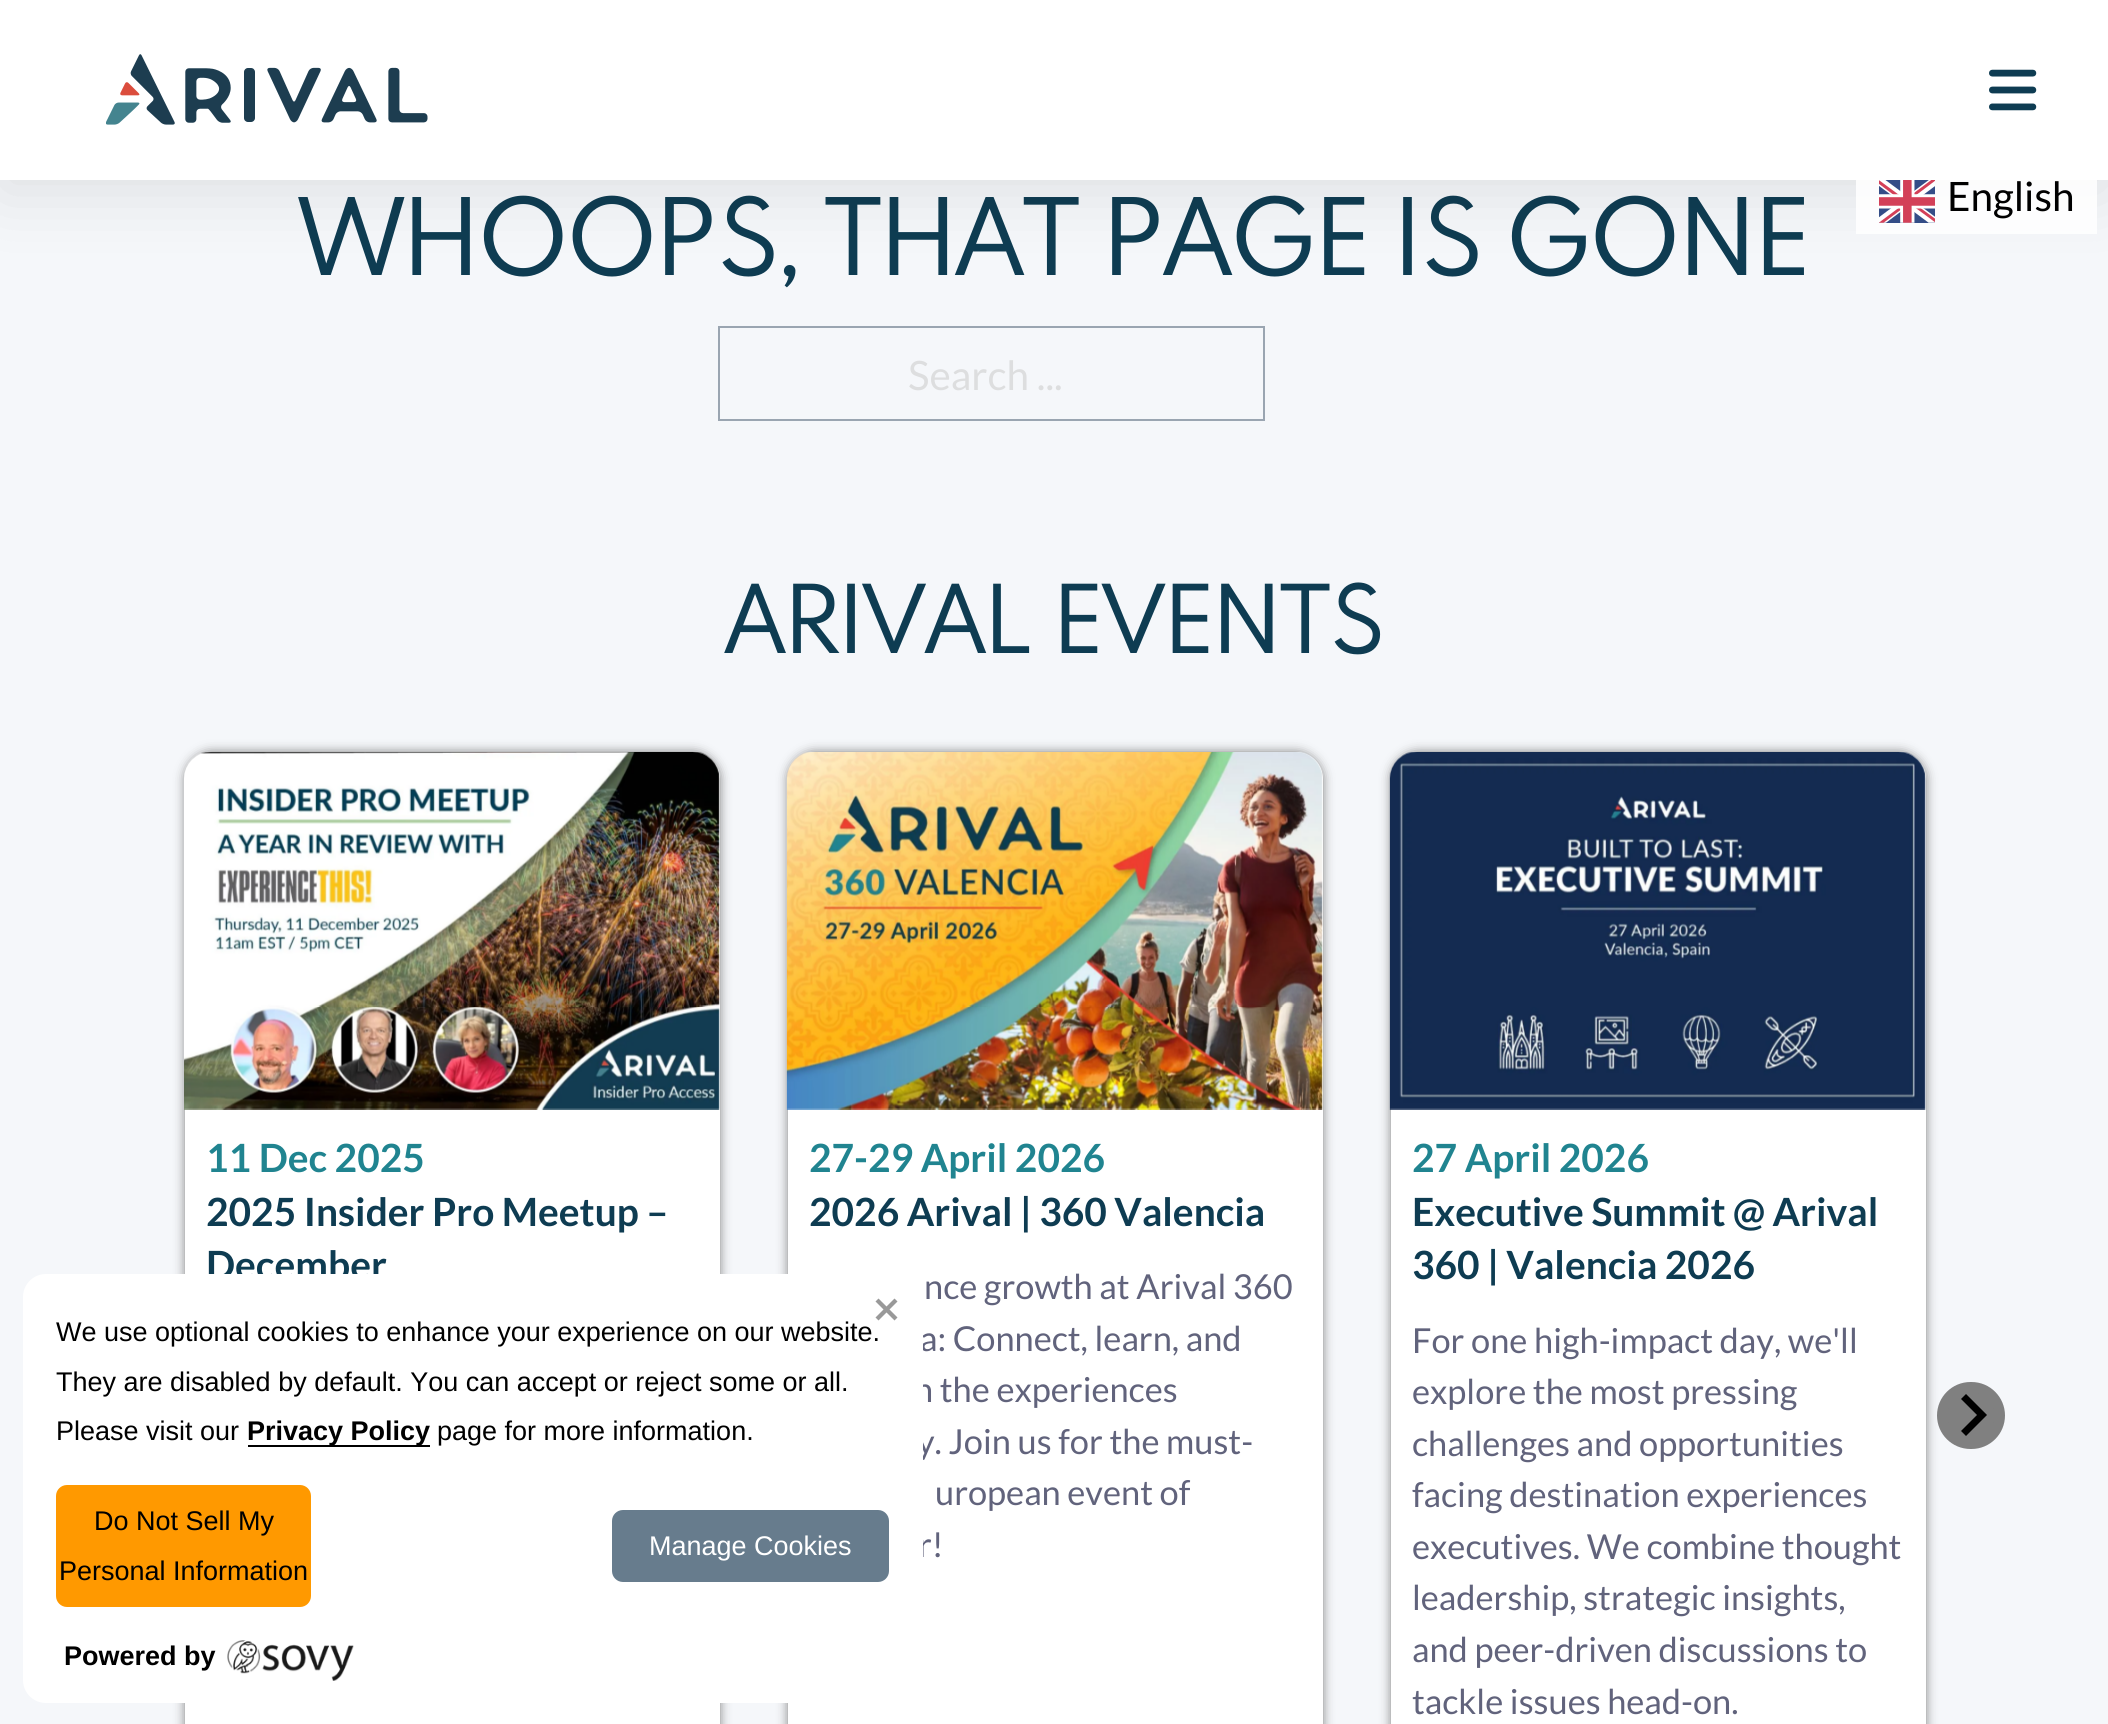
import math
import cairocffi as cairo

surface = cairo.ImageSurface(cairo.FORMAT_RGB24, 2108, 1724)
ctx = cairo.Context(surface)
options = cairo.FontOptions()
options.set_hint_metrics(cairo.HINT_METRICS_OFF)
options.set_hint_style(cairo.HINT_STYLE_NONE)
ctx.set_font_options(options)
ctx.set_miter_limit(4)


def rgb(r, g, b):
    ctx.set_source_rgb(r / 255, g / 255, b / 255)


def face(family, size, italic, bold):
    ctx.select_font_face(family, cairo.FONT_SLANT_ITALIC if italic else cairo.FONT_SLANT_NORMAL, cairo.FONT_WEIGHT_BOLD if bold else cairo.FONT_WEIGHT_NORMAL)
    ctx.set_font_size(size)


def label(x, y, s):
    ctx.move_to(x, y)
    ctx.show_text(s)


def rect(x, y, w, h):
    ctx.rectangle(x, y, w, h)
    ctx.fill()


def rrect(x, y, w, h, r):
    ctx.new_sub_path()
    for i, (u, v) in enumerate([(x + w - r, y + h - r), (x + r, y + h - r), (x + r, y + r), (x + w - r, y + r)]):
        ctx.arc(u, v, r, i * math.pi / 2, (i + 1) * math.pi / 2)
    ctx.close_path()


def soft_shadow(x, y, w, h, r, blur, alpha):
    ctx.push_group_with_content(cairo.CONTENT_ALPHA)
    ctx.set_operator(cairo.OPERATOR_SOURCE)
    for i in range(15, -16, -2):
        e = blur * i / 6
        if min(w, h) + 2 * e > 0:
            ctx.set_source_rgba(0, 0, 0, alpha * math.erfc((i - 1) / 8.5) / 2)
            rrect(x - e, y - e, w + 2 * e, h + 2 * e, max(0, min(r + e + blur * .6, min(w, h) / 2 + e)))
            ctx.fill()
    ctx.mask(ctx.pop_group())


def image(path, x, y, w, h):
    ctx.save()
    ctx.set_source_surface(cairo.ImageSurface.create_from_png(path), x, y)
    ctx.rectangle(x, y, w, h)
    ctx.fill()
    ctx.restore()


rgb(245, 247, 250)
ctx.paint()
face('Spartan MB', 94.5, 0, 0)
rgb(14, 60, 82)
label(299, 275, 'WHOOPS, THAT PAGE IS GONE')
ctx.rectangle(719, 327, 545, 93)
rgb(154, 165, 177)
ctx.stroke()
face('Lato', 40.5, 0, 0)
rgb(221, 222, 223)
label(908, 390, 'Search ...')
rgb(0, 0, 0)
soft_shadow(0, 11, 2108, 180, 0, 34, 0.1)
rgb(255, 255, 255)
rect(0, 0, 2108, 180)
image('image0.png', 106, 54, 322, 71)
image('image1.png', 1989, 69, 48, 42)
ctx.set_source_rgba(1, 1, 1, 0.87)
rect(1856, 180, 241, 54)
image('image2.png', 1879, 180, 56, 43)
rgb(0, 0, 0)
label(1947, 211, 'English')
face('Spartan MB', 84, 0, 0)
rgb(14, 60, 82)
label(725, 653, 'ARIVAL EVENTS')
rgb(128, 128, 128)
soft_shadow(185, 752, 535, 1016, 27, 5.5, 1)
rgb(255, 255, 255)
rrect(185, 752, 535, 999, 27)
ctx.fill()
image('image3.png', 184, 752, 536, 358)
face('Lato', 38.9, 0, 1)
rgb(32, 132, 144)
label(206, 1172, '11 Dec 2025')
rgb(14, 60, 82)
label(206, 1226, '2025 Insider Pro Meetup –')
label(206, 1279, 'December')
rgb(128, 128, 128)
soft_shadow(788, 752, 535, 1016, 27, 5.5, 1)
rgb(255, 255, 255)
rrect(788, 752, 535, 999, 27)
ctx.fill()
image('image4.png', 786, 752, 537, 358)
rgb(32, 132, 144)
label(809, 1172, '27-29 April 2026')
rgb(14, 60, 82)
label(809, 1226, '2026 Arival | 360 Valencia')
face('Lato', 34.4, 0, 0)
rgb(97, 99, 124)
label(924, 1299, 'nce growth at Arival 360')
label(920, 1351, 'a: Connect, learn, and')
label(914, 1402, 'n the experiences')
label(917, 1454, 'y. Join us for the must-')
label(935, 1505, 'uropean event of')
label(918, 1557, 'r!')
rgb(128, 128, 128)
soft_shadow(1391, 752, 535, 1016, 27, 5.5, 1)
rgb(255, 255, 255)
rrect(1391, 752, 535, 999, 27)
ctx.fill()
image('image5.png', 1389, 752, 537, 358)
face('Lato', 38.9, 0, 1)
rgb(32, 132, 144)
label(1412, 1172, '27 April 2026')
rgb(14, 60, 82)
label(1412, 1226, 'Executive Summit @ Arival')
label(1412, 1279, '360 | Valencia 2026')
face('Lato', 34.4, 0, 0)
rgb(97, 99, 124)
label(1412, 1353, 'For one high-impact day, we\'ll')
label(1412, 1404, 'explore the most pressing')
label(1412, 1456, 'challenges and opportunities')
label(1412, 1507, 'facing destination experiences')
label(1412, 1559, 'executives. We combine thought')
label(1412, 1610, 'leadership, strategic insights,')
label(1412, 1662, 'and peer-driven discussions to')
label(1412, 1714, 'tackle issues head-on.')
rgb(128, 128, 128)
rrect(1942.5, 1387.5, 57, 56, 28)
ctx.fill_preserve()
ctx.set_line_width(11)
ctx.stroke()
rgb(0, 0, 0)
ctx.new_path()
ctx.move_to(1966, 1394)
ctx.line_to(1961, 1399)
ctx.line_to(1977, 1415)
ctx.line_to(1961, 1431)
ctx.line_to(1966, 1436)
ctx.line_to(1987, 1415)
ctx.close_path()
ctx.fill()
rgb(255, 255, 255)
rrect(23, 1274, 900, 429, 23)
ctx.fill()
rgb(153, 153, 153)
ctx.new_path()
ctx.move_to(894.5, 1298.5)
ctx.line_to(897.5, 1301.5)
ctx.line_to(878.5, 1320.5)
ctx.line_to(875.5, 1317.5)
ctx.close_path()
ctx.fill()
ctx.new_path()
ctx.move_to(875.5, 1301.5)
ctx.line_to(878.5, 1298.5)
ctx.line_to(897.5, 1317.5)
ctx.line_to(894.5, 1320.5)
ctx.close_path()
ctx.fill()
face('Liberation Sans', 27, 0, 0)
rgb(0, 0, 0)
label(56, 1341, 'We use optional cookies to enhance your experience on our website.')
label(56, 1391, 'They are disabled by default. You can accept or reject some or all.')
label(56, 1440, 'Please visit our')
rect(248, 1445, 182, 2)
face('Liberation Sans', 27, 0, 1)
label(247, 1440, 'Privacy Policy')
face('Liberation Sans', 27, 0, 0)
label(437, 1440, 'page for more information.')
rgb(255, 153, 0)
rrect(56, 1485, 255, 122, 11)
ctx.fill()
rgb(0, 0, 0)
label(94, 1530, 'Do Not Sell My')
label(59, 1580, 'Personal Information')
rgb(103, 124, 141)
rrect(612, 1510, 277, 72, 11)
ctx.fill()
rgb(255, 255, 255)
label(649, 1555, 'Manage Cookies')
face('Liberation Sans', 27, 0, 1)
rgb(0, 0, 0)
label(64, 1665, 'Powered by')
image('image6.png', 227, 1640, 127, 41)
surface.write_to_png('render.png')
